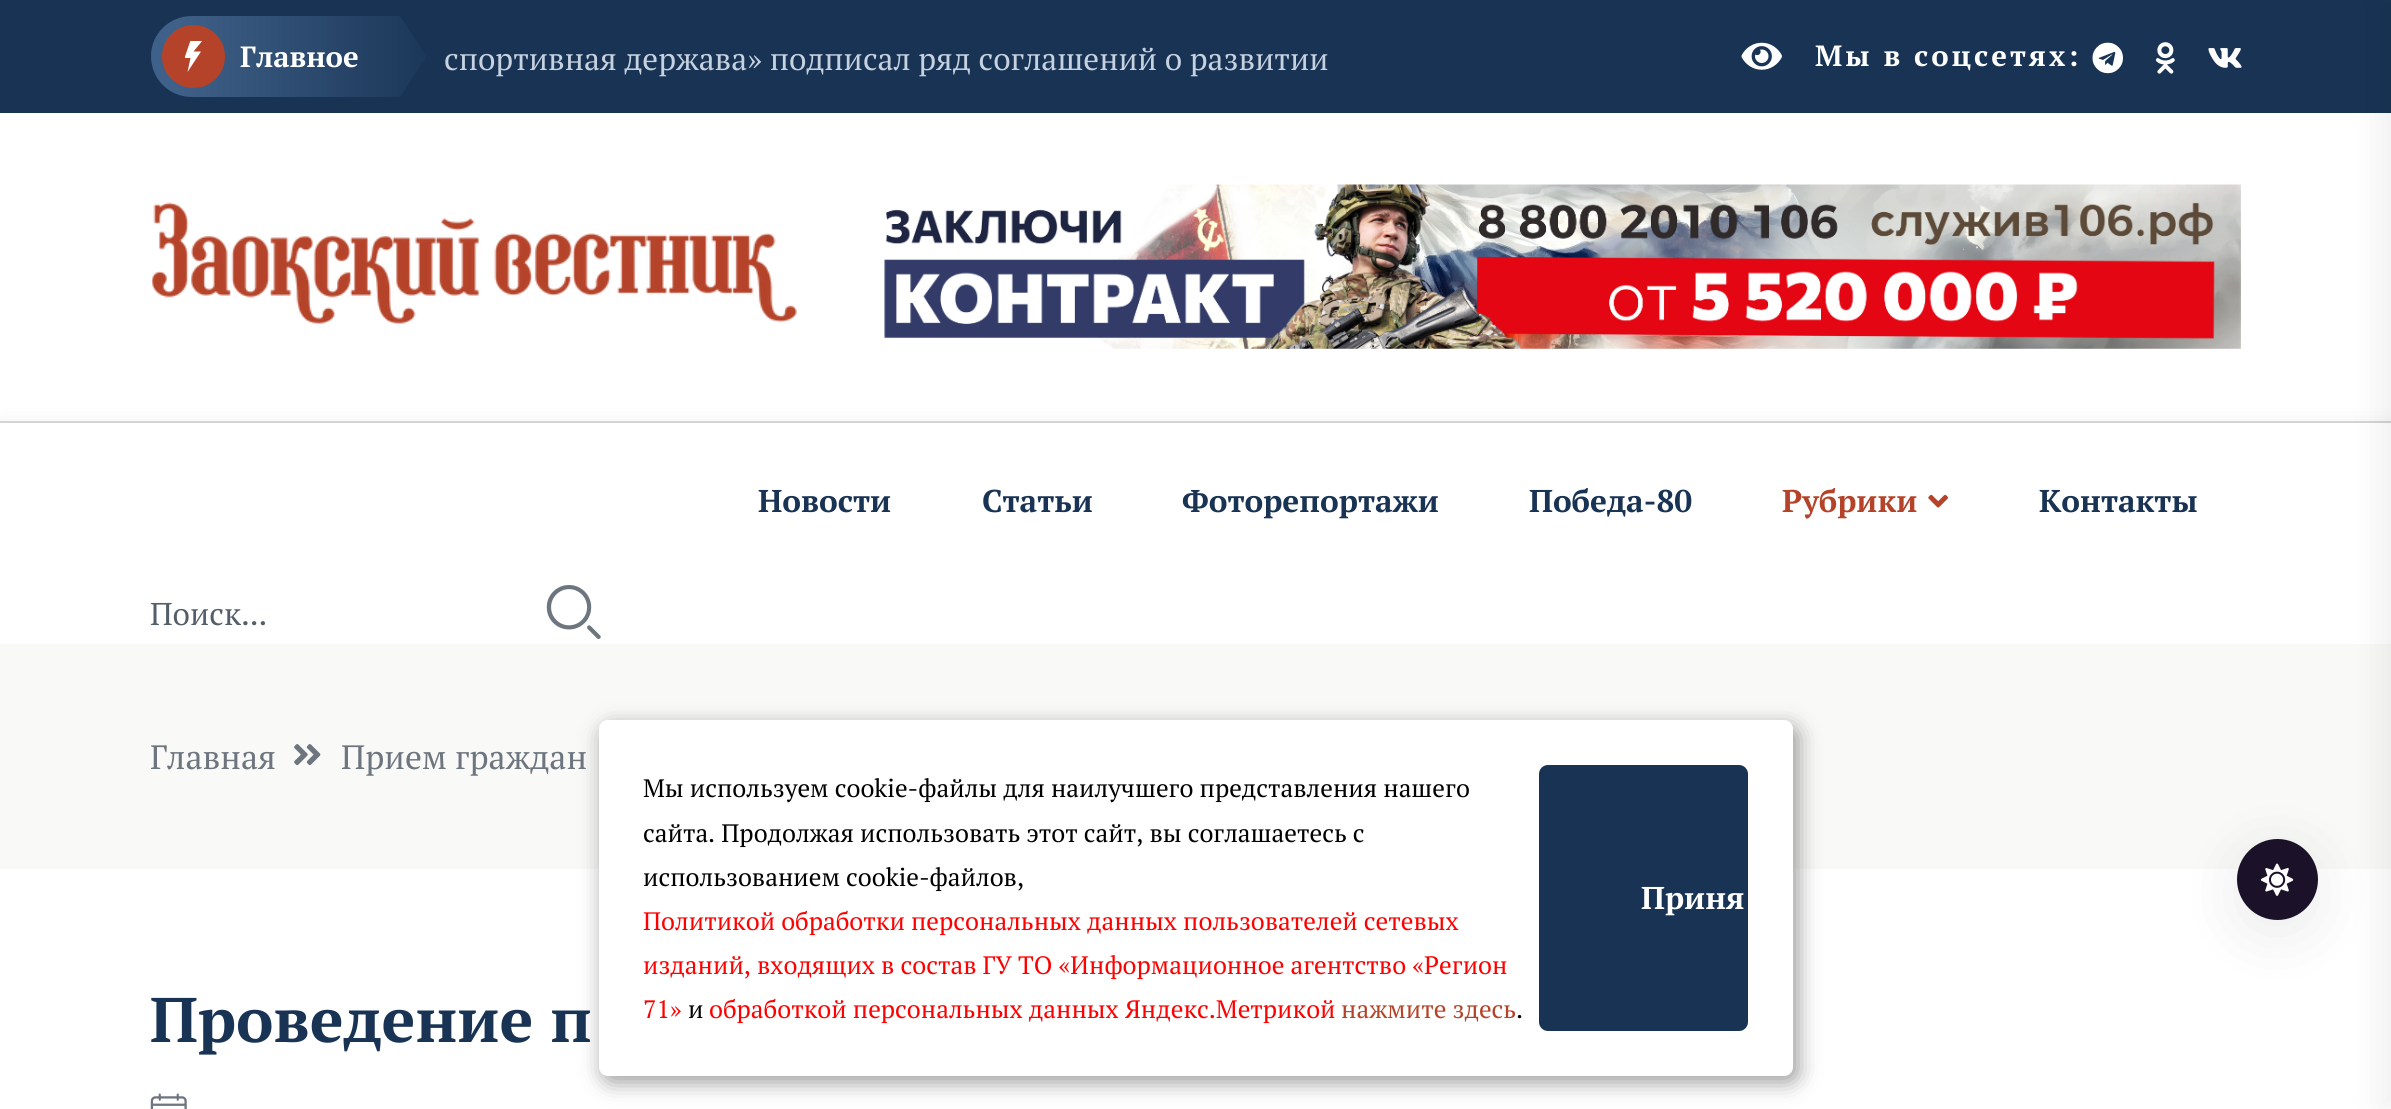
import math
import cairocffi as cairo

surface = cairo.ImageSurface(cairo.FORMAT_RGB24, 2391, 1109)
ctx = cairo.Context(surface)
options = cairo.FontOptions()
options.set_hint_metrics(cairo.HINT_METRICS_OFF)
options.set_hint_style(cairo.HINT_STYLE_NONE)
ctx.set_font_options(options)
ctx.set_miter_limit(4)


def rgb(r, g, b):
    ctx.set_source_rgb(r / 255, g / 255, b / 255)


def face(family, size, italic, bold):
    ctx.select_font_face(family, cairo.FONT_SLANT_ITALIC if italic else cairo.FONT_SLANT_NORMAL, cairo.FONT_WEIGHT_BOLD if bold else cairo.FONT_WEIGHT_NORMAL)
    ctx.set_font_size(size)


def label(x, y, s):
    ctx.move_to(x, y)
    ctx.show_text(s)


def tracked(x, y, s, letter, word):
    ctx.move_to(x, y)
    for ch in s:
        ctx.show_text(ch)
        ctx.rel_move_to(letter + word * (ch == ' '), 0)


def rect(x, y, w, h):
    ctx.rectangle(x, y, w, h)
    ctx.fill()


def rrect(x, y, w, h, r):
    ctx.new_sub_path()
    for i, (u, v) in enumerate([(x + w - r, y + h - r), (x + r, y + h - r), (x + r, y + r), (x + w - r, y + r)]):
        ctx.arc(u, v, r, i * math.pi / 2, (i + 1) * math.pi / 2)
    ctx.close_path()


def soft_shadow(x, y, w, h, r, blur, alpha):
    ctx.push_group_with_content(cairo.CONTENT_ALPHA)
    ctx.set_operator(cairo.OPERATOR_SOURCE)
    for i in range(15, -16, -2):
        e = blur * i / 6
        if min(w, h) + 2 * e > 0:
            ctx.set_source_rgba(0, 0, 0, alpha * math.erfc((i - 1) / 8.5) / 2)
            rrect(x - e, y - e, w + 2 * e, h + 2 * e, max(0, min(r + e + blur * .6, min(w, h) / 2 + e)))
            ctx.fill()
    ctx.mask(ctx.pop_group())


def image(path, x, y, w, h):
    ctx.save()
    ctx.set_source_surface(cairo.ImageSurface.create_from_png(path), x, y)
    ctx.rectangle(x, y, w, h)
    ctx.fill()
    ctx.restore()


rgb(255, 255, 255)
ctx.paint()
rgb(24, 51, 84)
rect(0, 0, 2391, 113)
gradient = cairo.LinearGradient(178, 97, 450, 97)
gradient.add_color_stop_rgba(0, 0.247, 0.376, 0.533, 1)
gradient.add_color_stop_rgba(1, 0.094, 0.2, 0.329, 1)
ctx.set_source(gradient)
ctx.new_path()
ctx.move_to(151, 56)
ctx.curve_to(151, 34, 169, 16, 192, 16)
ctx.line_to(400, 16)
ctx.line_to(425, 54)
ctx.curve_to(426, 55, 426, 57, 425, 59)
ctx.line_to(400, 97)
ctx.line_to(192, 97)
ctx.curve_to(169, 97, 151, 79, 151, 56)
ctx.close_path()
ctx.fill()
rgb(181, 67, 41)
ctx.arc(193.5, 56.5, 31.5, 0, 2 * math.pi)
ctx.fill()
ctx.save()
ctx.rectangle(185, 41, 18, 31)
ctx.clip()
rgb(255, 255, 255)
ctx.set_fill_rule(cairo.FILL_RULE_EVEN_ODD)
ctx.new_path()
ctx.move_to(202.5, 40.5)
ctx.line_to(190.5, 40.5)
ctx.line_to(184.5, 58)
ctx.line_to(190.5, 58)
ctx.line_to(187.5, 72)
ctx.line_to(201, 51.5)
ctx.line_to(193.5, 51.5)
ctx.close_path()
ctx.fill()
ctx.restore()
face('PT Serif', 29.25, 0, 1)
rgb(255, 255, 255)
label(240, 67, 'Главное')
face('PT Serif', 31.5, 0, 0)
rgb(199, 210, 224)
label(444, 70, 'спортивная держава» подписал ряд соглашений о развитии')
image('image0.png', 1741, 42, 41, 28)
face('PT Serif', 29.25, 0, 1)
rgb(255, 255, 255)
tracked(1815, 66, 'Мы в соцсетях:', 3, 0)
image('image1.png', 2092, 42, 31, 32)
image('image2.png', 2155, 42, 20, 32)
image('image3.png', 2208, 48, 34, 20)
rgb(217, 217, 217)
rect(0, 421, 2391, 2)
image('image4.png', 152, 202, 645, 122)
image('image5.png', 884, 184, 1357, 165)
ctx.save()
ctx.set_fill_rule(cairo.FILL_RULE_EVEN_ODD)
ctx.new_path()
ctx.move_to(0, 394)
ctx.line_to(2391, 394)
ctx.line_to(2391, 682)
ctx.line_to(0, 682)
ctx.close_path()
ctx.move_to(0, 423)
ctx.line_to(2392, 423)
ctx.line_to(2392, 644)
ctx.line_to(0, 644)
ctx.close_path()
ctx.clip()
rgb(0, 0, 0)
soft_shadow(0, 428, 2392, 220, 0, 11, 0.1)
ctx.restore()
face('PT Serif', 31.5, 0, 1)
rgb(24, 51, 84)
label(758, 512, 'Новости')
label(982, 512, 'Статьи')
label(1182, 512, 'Фоторепортажи')
label(1529, 512, 'Победа-80')
rgb(181, 67, 41)
label(1782, 512, 'Рубрики')
image('image6.png', 1928, 494, 20, 14)
rgb(24, 51, 84)
label(2039, 512, 'Контакты')
face('PT Serif', 31.5, 0, 0)
rgb(84, 94, 105)
label(150, 625, 'Поиск...')
image('image7.png', 546, 585, 55, 54)
rgb(249, 249, 247)
rect(0, 644, 2391, 225)
rgb(0, 0, 0)
soft_shadow(2378, 0, 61, 1109, 0, 16, 0.06)
face('PT Serif', 33.75, 0, 0)
rgb(109, 117, 127)
label(150, 769, 'Главная')
image('image8.png', 294, 744, 27, 22)
label(341, 769, 'Прием граждан')
face('PT Serif', 63, 0, 1)
rgb(24, 51, 84)
label(150, 1042, 'Проведение п')
image('image9.png', 150, 1093, 37, 16)
rgb(0, 0, 0)
soft_shadow(603, 727, 1195, 355, 9, 11, 0.4)
rgb(255, 255, 255)
rrect(599, 720, 1194, 356, 9)
ctx.fill()
face('PT Serif', 25.2, 0, 0)
rgb(0, 0, 0)
label(643, 797, 'Мы используем cookie-файлы для наилучшего представления нашего')
label(643, 842, 'сайта. Продолжая использовать этот сайт, вы соглашаетесь с')
label(643, 886, 'использованием cookie-файлов,')
rgb(255, 0, 0)
label(643, 930, 'Политикой обработки персональных данных пользователей сетевых')
label(643, 974, 'изданий, входящих в состав ГУ ТО «Информационное агентство «Регион')
label(643, 1018, '71»')
rgb(0, 0, 0)
label(688, 1018, 'и')
rgb(255, 0, 0)
label(709, 1018, 'обработкой персональных данных Яндекс.Метрикой')
rgb(181, 67, 41)
label(1341, 1018, 'нажмите здесь')
rgb(0, 0, 0)
label(1516, 1018, '.')
rgb(24, 51, 84)
rrect(1539, 765, 209, 266, 9)
ctx.fill()
face('PT Serif', 31.5, 0, 1)
rgb(255, 255, 255)
label(1641, 909, 'Приня')
rgb(0, 0, 0)
soft_shadow(2239, 853, 76, 79, 38, 32.5, 0.08)
rgb(27, 17, 40)
ctx.arc(2277.5, 879.5, 40.5, 0, 2 * math.pi)
ctx.fill()
image('image10.png', 2260, 863, 34, 33)
surface.write_to_png('render.png')
